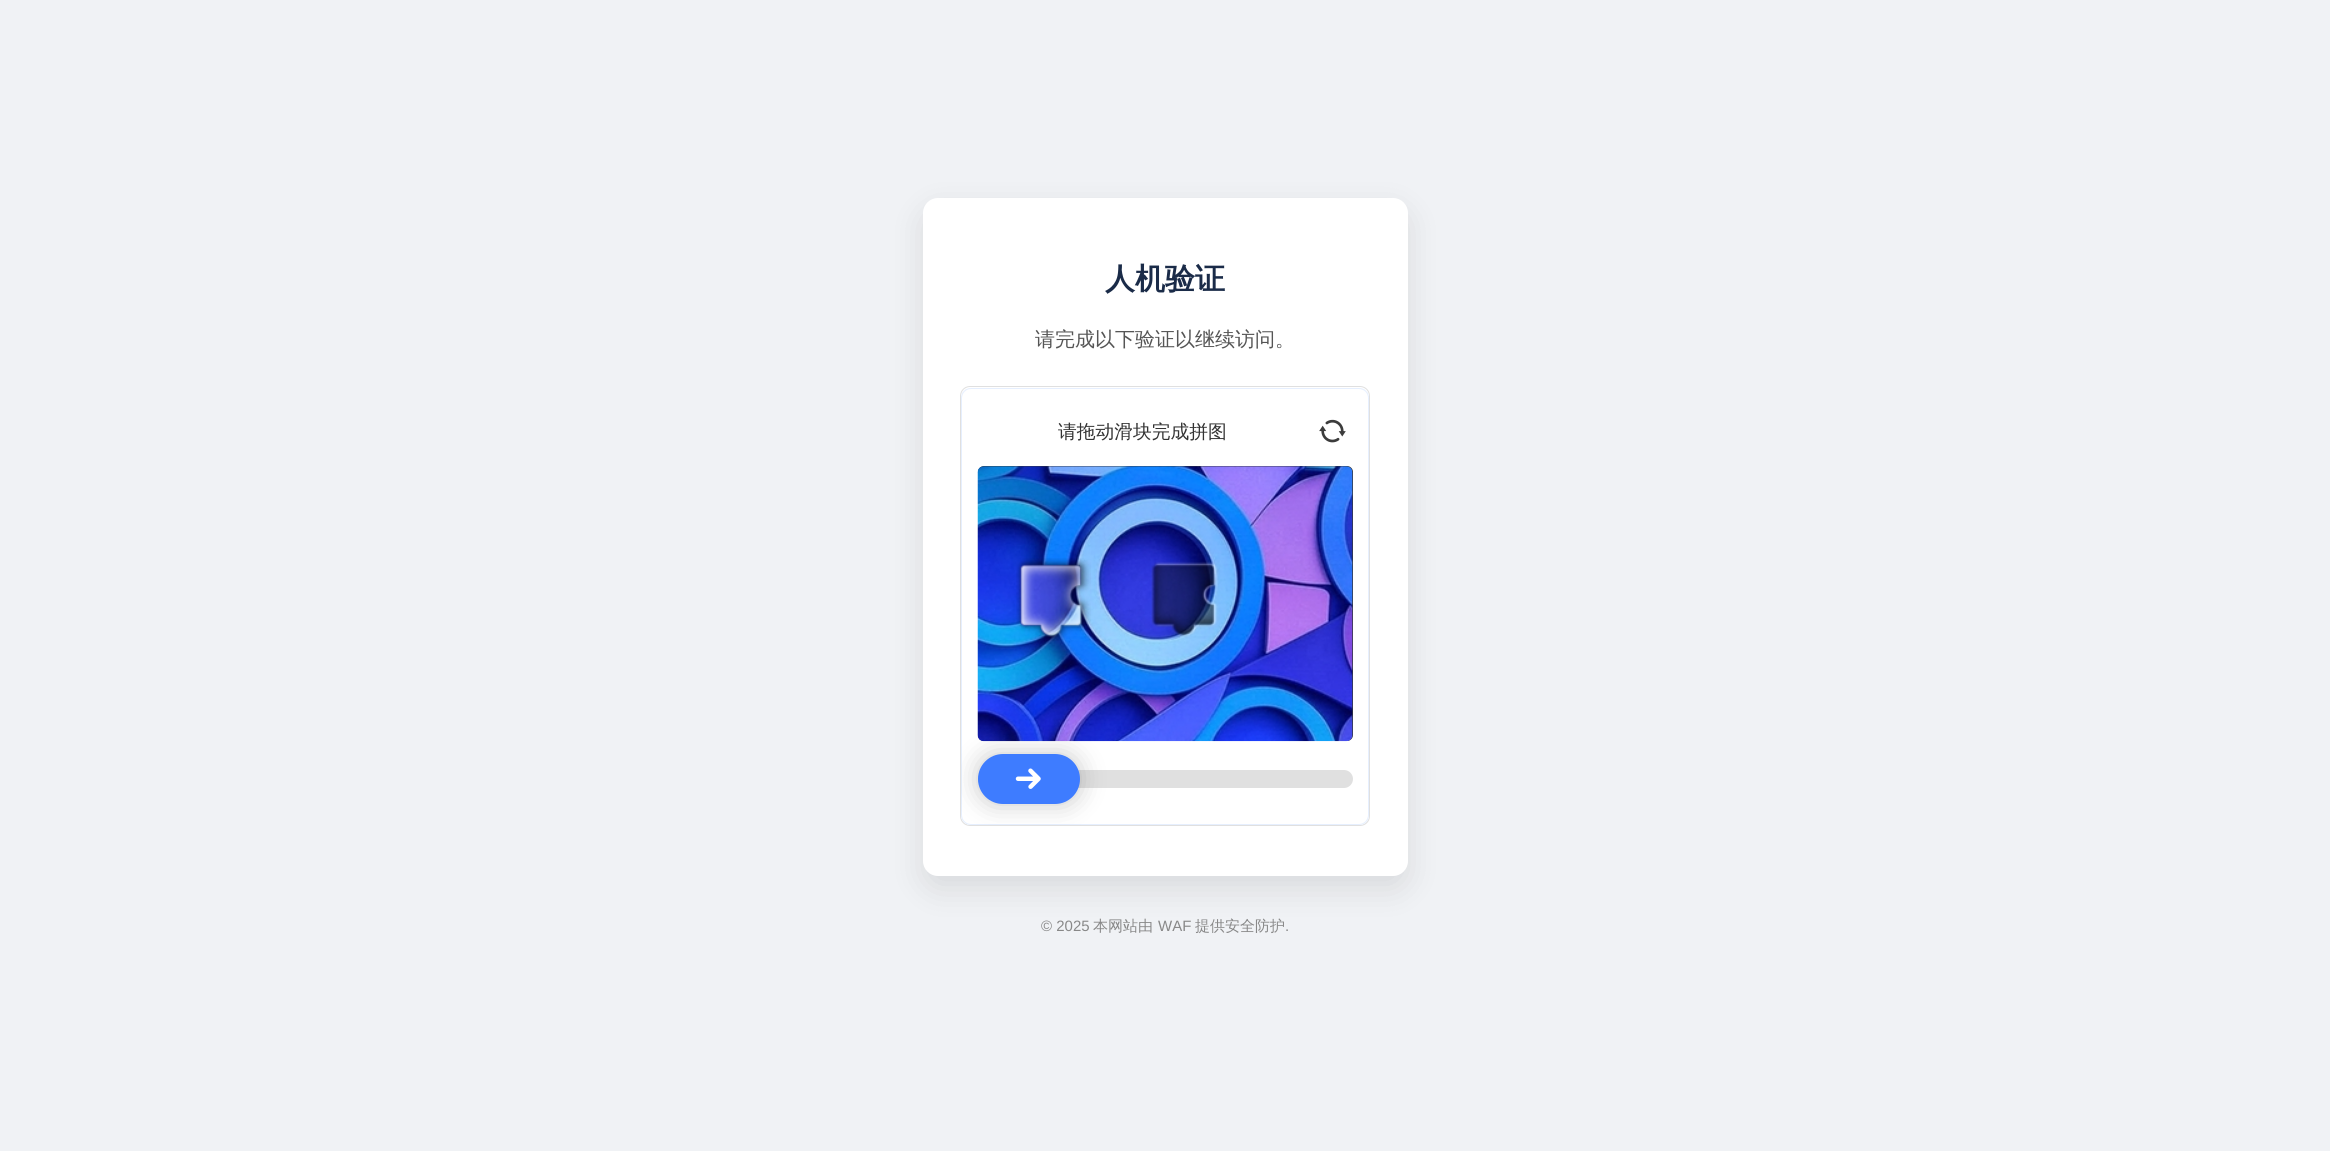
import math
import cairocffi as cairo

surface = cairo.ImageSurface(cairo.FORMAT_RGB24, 2330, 1151)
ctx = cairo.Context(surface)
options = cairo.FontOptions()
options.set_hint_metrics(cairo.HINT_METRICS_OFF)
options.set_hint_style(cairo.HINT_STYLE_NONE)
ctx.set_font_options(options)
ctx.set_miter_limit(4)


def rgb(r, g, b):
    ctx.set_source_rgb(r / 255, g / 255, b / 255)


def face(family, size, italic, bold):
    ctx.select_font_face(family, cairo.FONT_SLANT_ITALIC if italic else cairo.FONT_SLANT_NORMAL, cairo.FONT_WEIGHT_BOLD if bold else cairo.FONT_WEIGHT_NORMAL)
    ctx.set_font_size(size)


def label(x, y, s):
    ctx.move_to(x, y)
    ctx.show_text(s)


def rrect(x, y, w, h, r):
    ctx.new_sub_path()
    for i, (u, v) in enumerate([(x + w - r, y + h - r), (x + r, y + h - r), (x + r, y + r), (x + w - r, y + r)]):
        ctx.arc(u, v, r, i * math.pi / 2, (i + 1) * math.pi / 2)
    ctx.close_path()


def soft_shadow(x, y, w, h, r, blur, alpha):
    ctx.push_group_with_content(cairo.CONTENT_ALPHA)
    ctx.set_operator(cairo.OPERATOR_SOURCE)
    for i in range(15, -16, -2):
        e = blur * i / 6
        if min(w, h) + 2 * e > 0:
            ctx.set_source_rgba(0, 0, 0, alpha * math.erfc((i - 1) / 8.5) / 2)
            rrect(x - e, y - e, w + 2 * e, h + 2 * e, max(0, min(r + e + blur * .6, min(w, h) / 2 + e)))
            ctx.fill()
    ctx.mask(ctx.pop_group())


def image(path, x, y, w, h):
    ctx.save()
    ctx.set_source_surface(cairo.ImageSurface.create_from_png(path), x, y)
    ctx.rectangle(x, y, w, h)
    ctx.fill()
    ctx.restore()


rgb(240, 242, 245)
ctx.paint()
rgb(0, 0, 0)
soft_shadow(923, 210, 485, 679, 15, 15.5, 0.1)
rgb(255, 255, 255)
rrect(923, 198, 485, 678, 15)
ctx.fill()
face('WenQuanYi Zen Hei', 30, 0, 1)
rgb(26, 43, 72)
label(1105, 289, '人机验证')
face('WenQuanYi Zen Hei Medium', 20, 0, 0)
rgb(85, 85, 85)
label(1035, 346, '请完成以下验证以继续访问。')
rrect(960.5, 386.5, 409, 439, 9.5)
rgb(224, 224, 224)
ctx.set_line_width(1)
ctx.stroke()
ctx.save()
rrect(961, 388, 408, 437, 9)
ctx.clip()
rgb(100, 100, 100)
soft_shadow(961, 388, 408, 437, 10, 12.5, 0.1)
ctx.restore()
ctx.save()
rrect(961, 388, 408, 437, 9)
ctx.clip()
rgb(255, 255, 255)
rrect(961, 388, 408, 437, 10)
ctx.fill()
ctx.restore()
rrect(961.5, 388.5, 407, 436, 9.5)
ctx.set_source_rgba(0.808, 0.875, 0.996, 0.5)
ctx.stroke()
face('WenQuanYi Zen Hei Medium', 18.75, 0, 0)
rgb(51, 51, 51)
label(1058, 438, '请拖动滑块完成拼图')
image('image0.png', 1319, 419, 27, 24)
rgb(52, 56, 62)
rrect(978, 466, 375, 275, 6)
ctx.fill()
image('image1.png', 977, 466, 376, 276)
image('image2.png', 1016, 558, 75, 83)
rgb(224, 224, 224)
rrect(978, 770, 375, 18, 9)
ctx.fill()
ctx.save()
rrect(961, 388, 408, 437, 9)
ctx.clip()
rgb(100, 100, 100)
soft_shadow(978, 754, 102, 50, 25, 12.5, 0.35)
ctx.restore()
rgb(62, 124, 255)
rrect(978, 754, 102, 50, 25)
ctx.fill()
image('image3.png', 1015, 768, 26, 21)
face('Liberation Sans', 15, 0, 0)
rgb(136, 136, 136)
label(1041, 931, '© 2025')
face('WenQuanYi Zen Hei Medium', 15, 0, 0)
label(1093, 931, '本网站由')
face('Liberation Sans', 15, 0, 0)
label(1158, 931, 'WAF')
face('WenQuanYi Zen Hei Medium', 15, 0, 0)
label(1195, 931, '提供安全防护')
face('Liberation Sans', 15, 0, 0)
label(1285, 931, '.')
surface.write_to_png('render.png')
